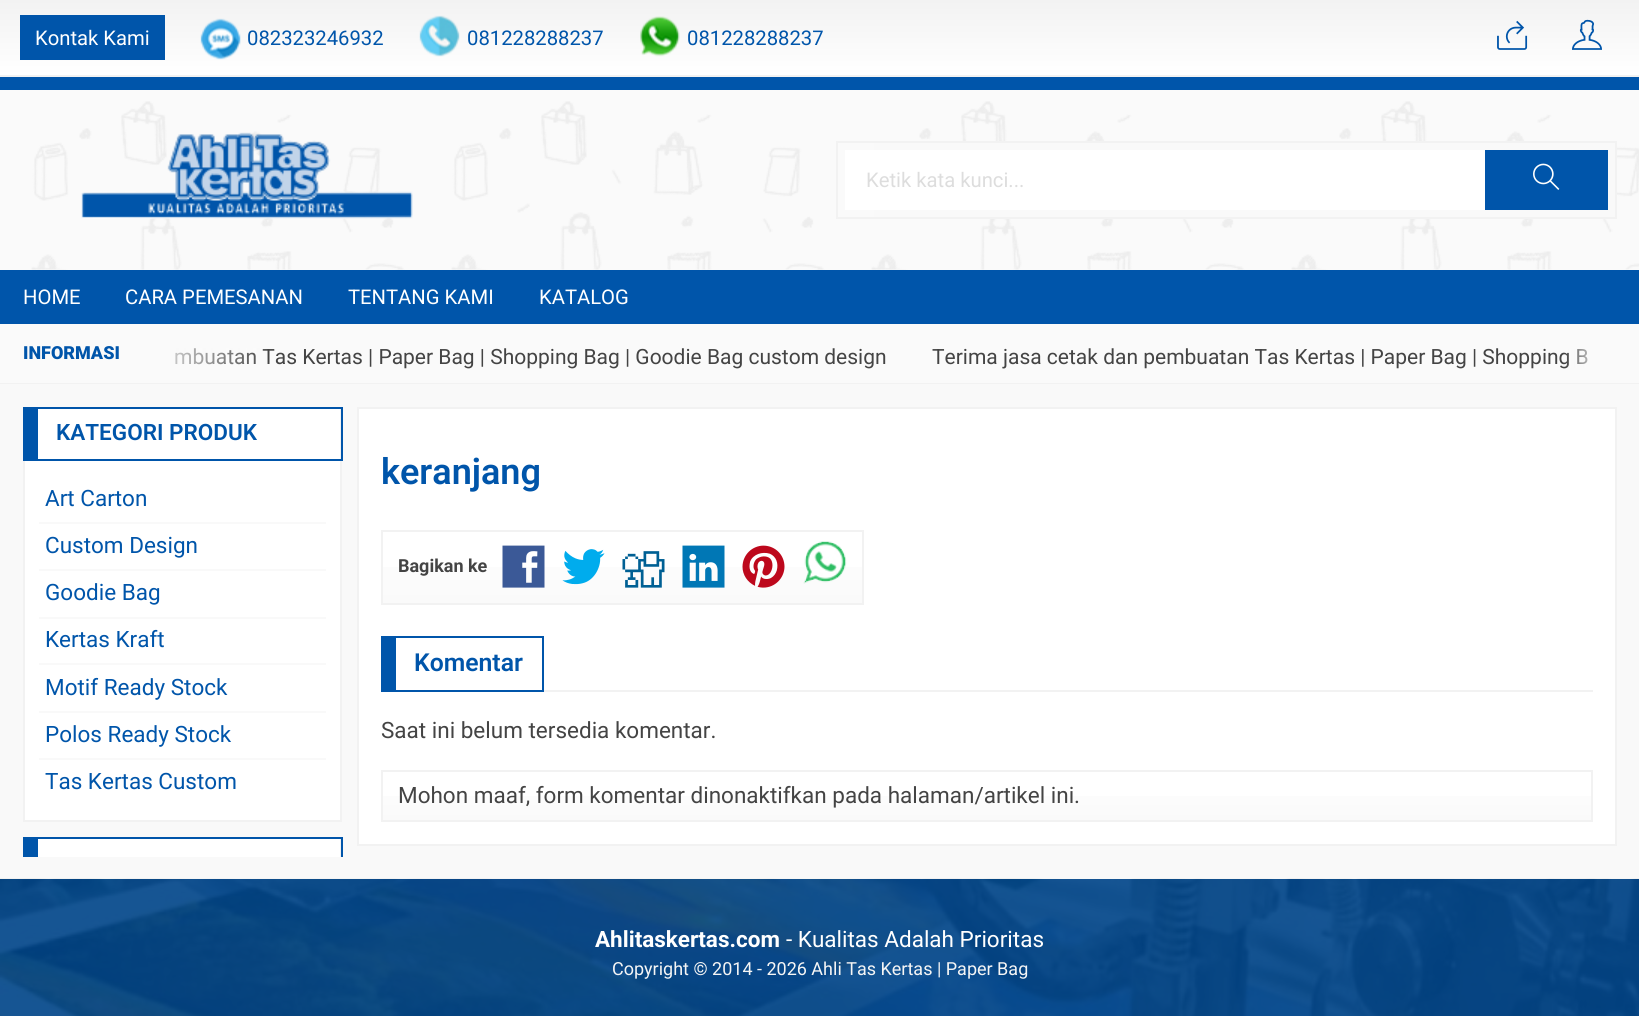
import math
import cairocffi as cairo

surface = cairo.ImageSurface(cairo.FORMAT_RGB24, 1639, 1016)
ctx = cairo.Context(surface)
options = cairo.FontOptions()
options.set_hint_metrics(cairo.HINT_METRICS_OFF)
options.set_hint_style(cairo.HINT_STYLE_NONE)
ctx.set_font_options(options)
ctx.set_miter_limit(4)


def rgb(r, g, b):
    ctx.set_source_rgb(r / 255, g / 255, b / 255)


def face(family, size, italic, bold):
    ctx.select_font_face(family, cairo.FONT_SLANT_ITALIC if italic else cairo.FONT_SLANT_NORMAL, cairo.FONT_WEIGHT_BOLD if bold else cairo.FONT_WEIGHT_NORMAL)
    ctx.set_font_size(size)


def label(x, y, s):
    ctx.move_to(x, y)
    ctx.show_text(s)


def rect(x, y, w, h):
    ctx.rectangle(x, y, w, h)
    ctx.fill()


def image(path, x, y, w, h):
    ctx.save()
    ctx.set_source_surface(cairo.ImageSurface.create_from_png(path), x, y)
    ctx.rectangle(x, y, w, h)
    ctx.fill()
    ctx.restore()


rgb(0, 85, 170)
ctx.paint()
gradient = cairo.LinearGradient(820, 0, 820, 75)
gradient.add_color_stop_rgba(0, 0.949, 0.949, 0.949, 1)
gradient.add_color_stop_rgba(1, 1, 1, 1, 1)
ctx.set_source(gradient)
rect(0, 0, 1639, 75)
gradient = cairo.LinearGradient(820, 75, 820, 150)
gradient.add_color_stop_rgba(0, 0.949, 0.949, 0.949, 1)
gradient.add_color_stop_rgba(1, 1, 1, 1, 1)
ctx.set_source(gradient)
rect(0, 75, 1639, 2)
rgb(0, 85, 170)
rect(20, 15, 145, 45)
face('Roboto', 20.25, 0, 0)
rgb(255, 255, 255)
label(35, 45, 'Kontak Kami')
image('image0.png', 200, 18, 41, 42)
rgb(0, 85, 170)
label(247, 45, '082323246932')
image('image1.png', 419, 15, 41, 42)
label(467, 45, '081228288237')
image('image2.png', 640, 16, 40, 41)
label(687, 45, '081228288237')
image('image3.png', 1497, 20, 31, 30)
image('image4.png', 1572, 19, 30, 31)
rgb(250, 250, 250)
rect(0, 90, 1639, 180)
image('image5.png', 31, 101, 1608, 169)
image('image6.png', 81, 132, 332, 87)
rgb(249, 249, 249)
rect(874, 143, 741, 74)
ctx.rectangle(837, 142, 779, 76)
rgb(242, 242, 242)
ctx.stroke()
rgb(255, 255, 255)
rect(845, 150, 640, 60)
rgb(221, 221, 221)
label(866, 187, 'Ketik kata kunci...')
rgb(0, 85, 170)
rect(1485, 150, 123, 60)
image('image7.png', 1533, 163, 27, 27)
rgb(255, 255, 255)
label(23, 304, 'HOME')
label(125, 304, 'CARA PEMESANAN')
label(348, 304, 'TENTANG KAMI')
label(539, 304, 'KATALOG')
rgb(250, 250, 250)
rect(0, 324, 1639, 59)
rgb(242, 242, 242)
rect(0, 383, 1639, 1)
face('Roboto', 21, 0, 0)
rgb(68, 68, 68)
label(174, 364, 'mbuatan Tas Kertas | Paper Bag | Shopping Bag | Goodie Bag custom design')
gradient = cairo.LinearGradient(0, 354, 270, 354)
gradient.add_color_stop_rgba(0, 0.98, 0.98, 0.98, 1)
gradient.add_color_stop_rgba(0.5, 0.98, 0.98, 0.98, 1)
gradient.add_color_stop_rgba(1, 0.98, 0.98, 0.98, 0)
ctx.set_source(gradient)
rect(175, 348, 92, 17)
face('Roboto Black', 18, 0, 0)
rgb(0, 85, 170)
label(23, 359, 'INFORMASI')
face('Roboto', 21, 0, 0)
rgb(68, 68, 68)
label(932, 364, 'Terima jasa cetak dan pembuatan Tas Kertas | Paper Bag | Shopping B')
gradient = cairo.LinearGradient(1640, 354, 1565, 354)
gradient.add_color_stop_rgba(0, 0.98, 0.98, 0.98, 1)
gradient.add_color_stop_rgba(0.5, 0.98, 0.98, 0.98, 1)
gradient.add_color_stop_rgba(1, 0.98, 0.98, 0.98, 0)
ctx.set_source(gradient)
rect(1566, 349, 22, 19)
rgb(249, 249, 249)
rect(0, 384, 1639, 495)
rgb(255, 255, 255)
ctx.rectangle(24, 408, 317, 413)
ctx.fill_preserve()
rgb(242, 242, 242)
ctx.stroke()
rgb(0, 85, 170)
rect(38, 407, 304, 2)
rect(341, 407, 2, 54)
rect(38, 459, 304, 2)
rect(23, 407, 15, 54)
face('Roboto SemiBold', 22.5, 0, 0)
label(56, 440, 'KATEGORI PRODUK')
rgb(249, 249, 249)
rect(39, 522, 287, 2)
face('Roboto', 22.5, 0, 0)
rgb(0, 85, 170)
label(45, 506, 'Art Carton')
rgb(249, 249, 249)
rect(39, 569, 287, 2)
rgb(0, 85, 170)
label(45, 553, 'Custom Design')
rgb(249, 249, 249)
rect(39, 617, 287, 2)
rgb(0, 85, 170)
label(45, 600, 'Goodie Bag')
rgb(249, 249, 249)
rect(39, 663, 287, 2)
rgb(0, 85, 170)
label(45, 647, 'Kertas Kraft')
rgb(249, 249, 249)
rect(39, 711, 287, 2)
rgb(0, 85, 170)
label(45, 695, 'Motif Ready Stock')
rgb(249, 249, 249)
rect(39, 758, 287, 2)
rgb(0, 85, 170)
label(45, 742, 'Polos Ready Stock')
label(45, 789, 'Tas Kertas Custom')
rgb(255, 255, 255)
rect(38, 839, 302, 18)
ctx.save()
ctx.rectangle(23, 407, 334, 450)
ctx.clip()
ctx.rectangle(24, 838, 317, 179)
rgb(242, 242, 242)
ctx.stroke()
ctx.restore()
rgb(0, 85, 170)
rect(38, 837, 304, 2)
rect(341, 837, 2, 20)
rect(23, 837, 15, 20)
rgb(255, 255, 255)
ctx.rectangle(358, 408, 1258, 437)
ctx.fill_preserve()
rgb(242, 242, 242)
ctx.stroke()
face('Roboto SemiBold', 36, 0, 0)
rgb(0, 85, 170)
label(381, 484, 'keranjang')
gradient = cairo.LinearGradient(623, 603, 623, 531)
gradient.add_color_stop_rgba(0, 0.98, 0.98, 0.98, 1)
gradient.add_color_stop_rgba(1, 1, 1, 1, 1)
ctx.set_source(gradient)
rect(383, 567, 479, 36)
ctx.rectangle(382, 531, 481, 73)
rgb(242, 242, 242)
ctx.stroke()
face('Roboto', 18, 0, 1)
rgb(68, 68, 68)
label(398, 572, 'Bagikan ke')
image('image8.png', 502, 545, 43, 43)
image('image9.png', 562, 549, 43, 36)
image('image10.png', 622, 551, 43, 37)
image('image11.png', 682, 545, 43, 43)
image('image12.png', 742, 545, 43, 43)
image('image13.png', 803, 541, 44, 43)
rgb(242, 242, 242)
rect(544, 690, 1049, 2)
rgb(0, 85, 170)
rect(396, 636, 147, 2)
rect(542, 636, 2, 56)
rect(396, 690, 147, 2)
rect(381, 636, 15, 56)
face('Roboto SemiBold', 24.75, 0, 0)
label(414, 671, 'Komentar')
face('Roboto', 22.5, 0, 0)
rgb(68, 68, 68)
label(381, 738, 'Saat ini belum tersedia komentar.')
gradient = cairo.LinearGradient(987, 821, 987, 771)
gradient.add_color_stop_rgba(0, 0.98, 0.98, 0.98, 1)
gradient.add_color_stop_rgba(1, 1, 1, 1, 1)
ctx.set_source(gradient)
rect(383, 796, 1208, 24)
ctx.rectangle(382, 771, 1210, 50)
rgb(242, 242, 242)
ctx.stroke()
rgb(68, 68, 68)
label(398, 803, 'Mohon maaf, form komentar dinonaktifkan pada halaman/artikel ini.')
rgb(0, 68, 136)
rect(0, 879, 1639, 137)
image('image14.png', 0, 878, 1639, 138)
face('Roboto', 22.5, 0, 1)
rgb(255, 255, 255)
label(595, 947, 'Ahlitaskertas.com')
face('Roboto', 22.5, 0, 0)
label(786, 947, '- Kualitas Adalah Prioritas')
face('Roboto', 18, 0, 0)
rgb(245, 245, 245)
label(612, 975, 'Copyright © 2014 - 2026 Ahli Tas Kertas | Paper Bag')
surface.write_to_png('render.png')
